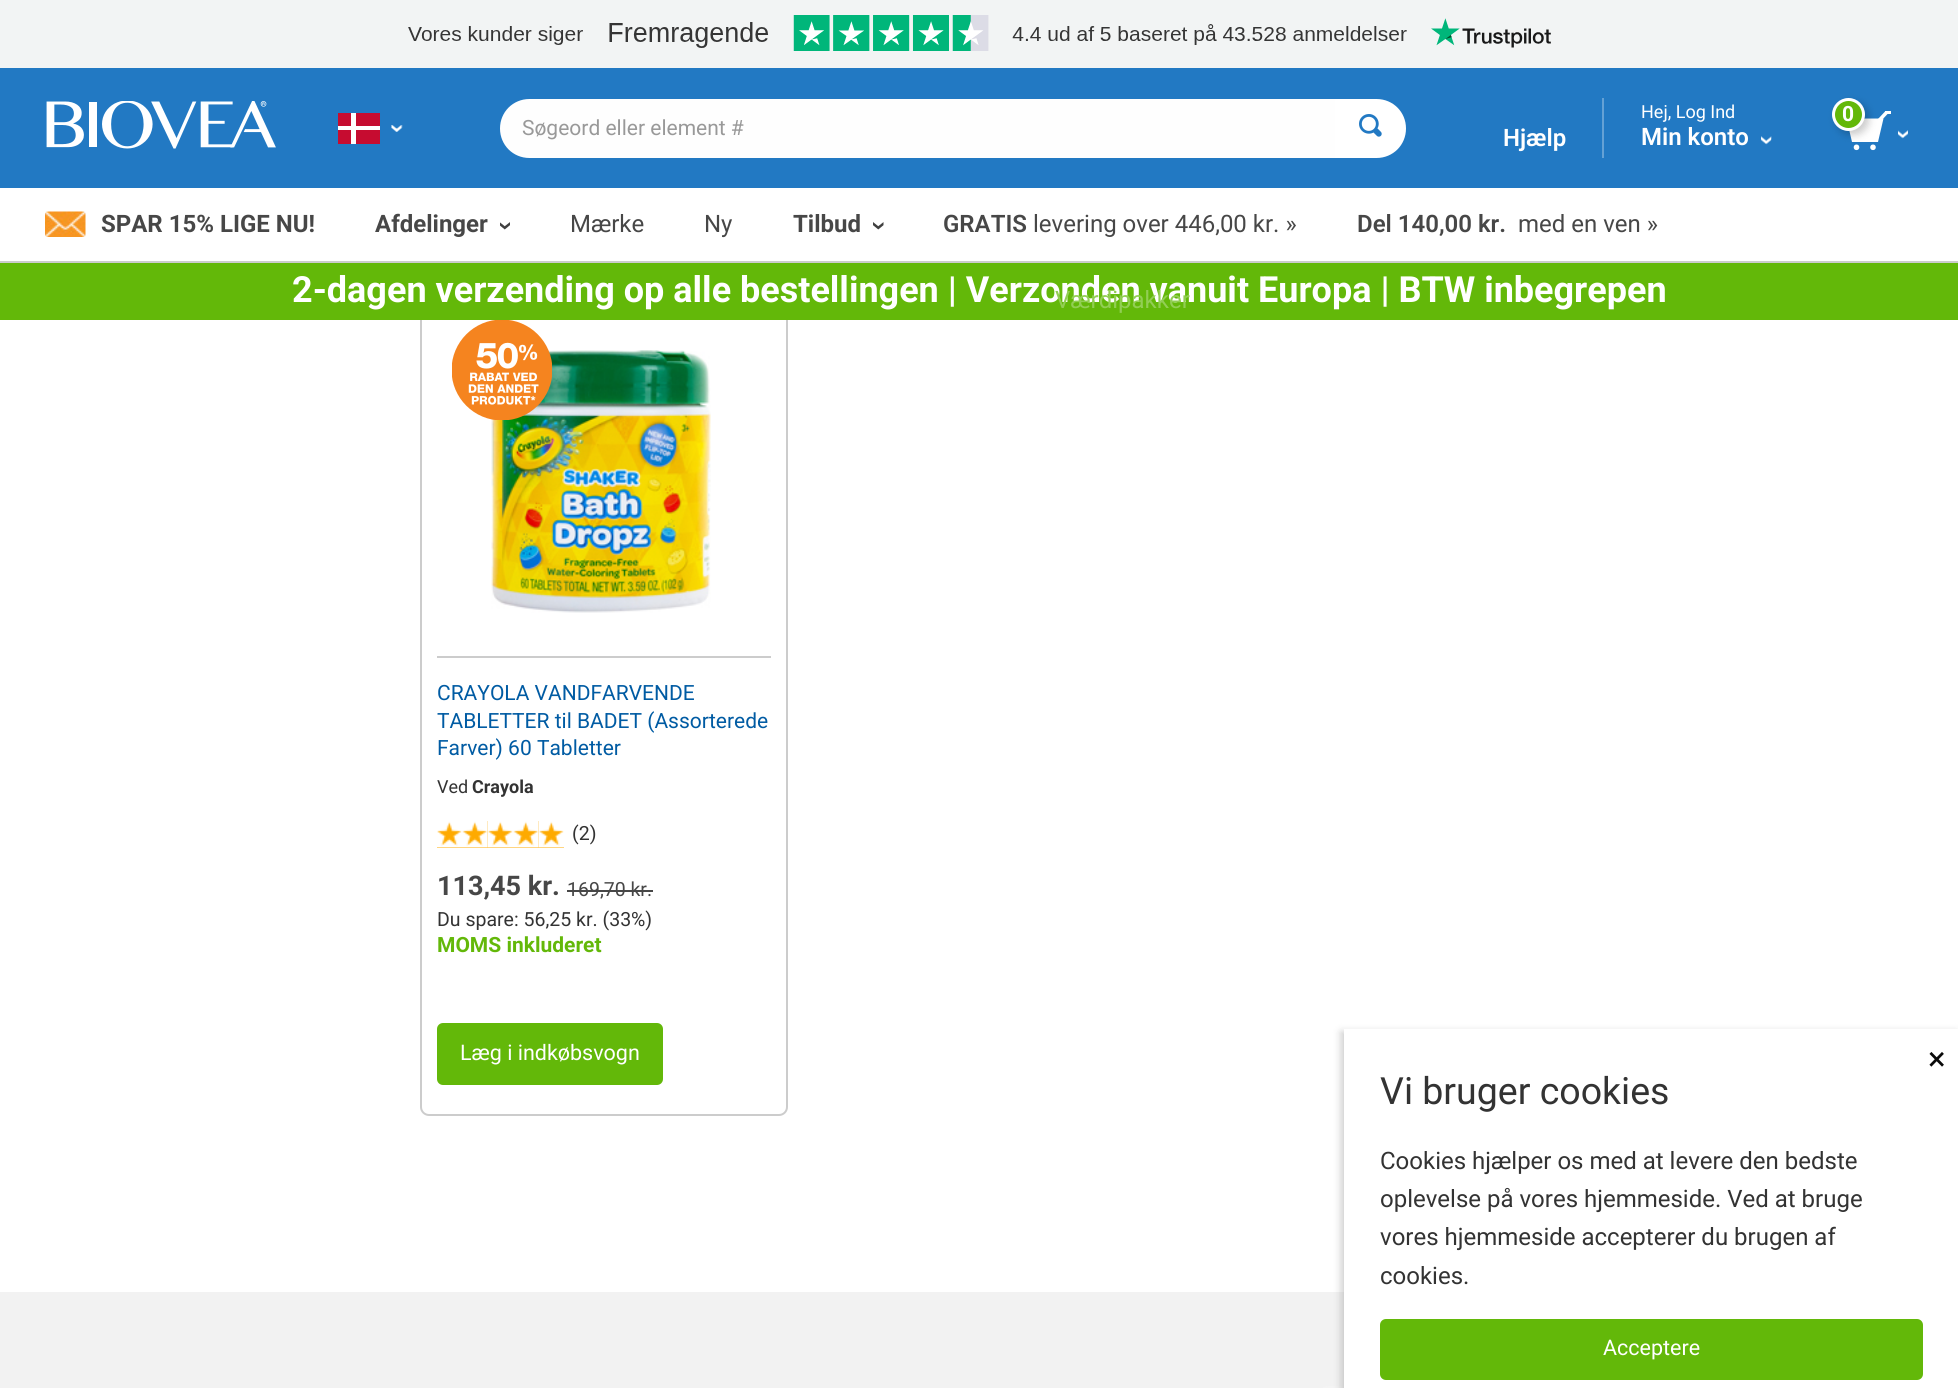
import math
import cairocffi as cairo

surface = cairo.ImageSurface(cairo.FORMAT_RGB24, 1958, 1388)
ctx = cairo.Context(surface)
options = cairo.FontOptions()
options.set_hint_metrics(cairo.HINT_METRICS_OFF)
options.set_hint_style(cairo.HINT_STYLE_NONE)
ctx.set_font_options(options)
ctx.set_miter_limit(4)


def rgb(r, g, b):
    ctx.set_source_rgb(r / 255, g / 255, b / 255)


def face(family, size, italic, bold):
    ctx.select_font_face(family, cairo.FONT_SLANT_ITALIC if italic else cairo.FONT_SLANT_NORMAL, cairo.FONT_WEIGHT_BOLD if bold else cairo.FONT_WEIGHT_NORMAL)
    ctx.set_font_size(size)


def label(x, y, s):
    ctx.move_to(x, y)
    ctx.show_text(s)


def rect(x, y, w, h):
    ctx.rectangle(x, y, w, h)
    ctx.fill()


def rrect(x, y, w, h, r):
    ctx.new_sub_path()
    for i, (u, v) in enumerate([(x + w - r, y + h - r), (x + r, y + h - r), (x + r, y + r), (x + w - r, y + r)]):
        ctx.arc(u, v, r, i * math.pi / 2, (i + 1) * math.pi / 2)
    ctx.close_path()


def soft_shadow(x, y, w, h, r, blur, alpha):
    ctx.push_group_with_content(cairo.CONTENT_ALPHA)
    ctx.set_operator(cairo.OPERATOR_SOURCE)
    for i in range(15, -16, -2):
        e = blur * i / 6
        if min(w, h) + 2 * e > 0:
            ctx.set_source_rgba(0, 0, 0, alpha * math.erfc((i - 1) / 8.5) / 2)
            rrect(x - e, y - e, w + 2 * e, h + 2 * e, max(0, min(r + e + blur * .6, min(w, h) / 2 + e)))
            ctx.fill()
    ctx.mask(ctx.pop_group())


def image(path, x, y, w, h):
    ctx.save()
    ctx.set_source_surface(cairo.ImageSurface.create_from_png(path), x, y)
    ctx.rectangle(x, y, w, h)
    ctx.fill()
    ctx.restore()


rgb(255, 255, 255)
ctx.paint()
rgb(242, 244, 244)
rect(0, 0, 1958, 68)
image('image0.png', 408, 15, 1143, 36)
rgb(34, 121, 195)
rect(0, 68, 1958, 120)
image('image1.png', 46, 101, 230, 48)
rgb(198, 12, 48)
rect(338, 113, 42, 31)
rgb(255, 255, 255)
rect(351, 113, 5, 31)
rect(338, 126, 42, 4)
image('image2.png', 391, 125, 12, 7)
rgb(254, 254, 254)
ctx.new_path()
ctx.move_to(529.5, 99)
ctx.line_to(1335, 99)
ctx.line_to(1335, 158)
ctx.line_to(529.5, 158)
ctx.curve_to(513, 158, 500, 145, 500, 128.5)
ctx.curve_to(500, 112, 513, 99, 529.5, 99)
ctx.close_path()
ctx.fill()
face('Roboto', 21, 0, 0)
rgb(153, 153, 153)
label(522, 135, 'Søgeord eller element #')
rgb(255, 255, 255)
ctx.new_path()
ctx.move_to(1335, 99)
ctx.line_to(1376.5, 99)
ctx.curve_to(1393, 99, 1406, 112, 1406, 128.5)
ctx.curve_to(1406, 145, 1393, 158, 1376.5, 158)
ctx.line_to(1335, 158)
ctx.close_path()
ctx.fill()
image('image3.png', 1359, 114, 23, 23)
face('Roboto SemiBold', 24, 0, 0)
label(1503, 146, 'Hjælp')
rgb(100, 161, 213)
rect(1602, 98, 2, 60)
face('Roboto', 18, 0, 0)
rgb(255, 255, 255)
label(1641, 118, 'Hej, Log Ind')
face('Roboto SemiBold', 24, 0, 0)
label(1641, 145, 'Min konto')
image('image4.png', 1761, 136, 11, 9)
ctx.new_path()
ctx.move_to(1878, 142)
ctx.line_to(1852, 142)
ctx.line_to(1846.5, 118.5)
ctx.line_to(1883.5, 118.5)
ctx.close_path()
ctx.fill()
ctx.new_path()
ctx.move_to(1877.5, 119.5)
ctx.line_to(1885.5, 111)
ctx.line_to(1888, 113.5)
ctx.line_to(1880, 122)
ctx.close_path()
ctx.fill()
ctx.arc(1873, 147.3, 2.8, 0, 2 * math.pi)
ctx.fill()
ctx.arc(1856.5, 147.3, 2.8, 0, 2 * math.pi)
ctx.fill()
rgb(0, 0, 0)
soft_shadow(1836, 102, 33, 33, 16.5, 4, 0.2)
rgb(99, 184, 9)
ctx.arc(1848.5, 114.5, 15, 0, 2 * math.pi)
ctx.fill_preserve()
rgb(255, 255, 255)
ctx.set_line_width(3)
ctx.stroke()
face('Roboto', 21, 0, 1)
label(1842, 121, '0')
rect(1885, 111, 6, 3)
image('image5.png', 1898, 130, 10, 9)
rgb(204, 204, 204)
rect(0, 261, 1958, 2)
image('image6.png', 45, 211, 41, 26)
face('Roboto', 24, 0, 1)
rgb(71, 71, 71)
label(101, 232, 'SPAR 15% LIGE NU!')
label(375, 232, 'Afdelinger')
image('image7.png', 500, 222, 10, 8)
face('Roboto', 24, 0, 0)
label(570, 232, 'Mærke')
label(704, 232, 'Ny')
face('Roboto', 24, 0, 1)
label(793, 232, 'Tilbud')
image('image8.png', 873, 222, 11, 8)
face('Roboto SemiBold', 24, 0, 0)
label(943, 232, 'GRATIS')
face('Roboto', 24, 0, 0)
label(1033, 232, 'levering over 446,00 kr. »')
face('Roboto SemiBold', 24, 0, 0)
label(1357, 232, 'Del 140,00 kr.')
face('Roboto', 24, 0, 0)
label(1518, 232, 'med en ven »')
rrect(421, 267, 366, 848, 8)
rgb(204, 204, 204)
ctx.set_line_width(2)
ctx.stroke()
rgb(99, 184, 9)
rect(0, 263, 1958, 57)
face('Roboto', 36, 0, 1)
rgb(255, 255, 255)
label(292, 302, '2-dagen verzending op alle bestellingen | Verzonden vanuit Europa | BTW inbegrepen')
face('Roboto', 24, 0, 0)
rgb(146, 206, 84)
label(1055, 308, 'Værdipakker')
rgb(242, 242, 242)
rect(0, 1292, 1344, 96)
rgb(244, 244, 244)
rrect(1320, 1386, 602, 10, 8)
ctx.fill()
rgb(156, 156, 156)
soft_shadow(1341, 1032, 615, 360, 0, 4, 0.5)
rgb(255, 255, 255)
rect(1344, 1029, 614, 359)
face('Roboto', 33, 0, 0)
rgb(10, 10, 10)
label(1928, 1070, '×')
face('Roboto', 37.5, 0, 0)
rgb(51, 51, 51)
label(1380, 1104, 'Vi bruger cookies')
face('Roboto', 24, 0, 0)
label(1380, 1169, 'Cookies hjælper os med at levere den bedste')
label(1380, 1207, 'oplevelse på vores hjemmeside. Ved at bruge')
label(1380, 1245, 'vores hjemmeside accepterer du brugen af')
label(1380, 1284, 'cookies.')
rgb(99, 184, 9)
rrect(1380, 1319, 543, 61, 6)
ctx.fill()
face('Roboto', 21.5, 0, 0)
rgb(255, 255, 255)
label(1603, 1355, 'Acceptere')
rgb(204, 204, 204)
rect(437, 656, 334, 2)
image('image10.png', 491, 350, 220, 263)
image('image9.png', 452, 320, 100, 100)
face('Roboto', 21, 0, 0)
rgb(0, 91, 163)
label(437, 700, 'CRAYOLA VANDFARVENDE')
label(437, 728, 'TABLETTER til BADET (Assorterede')
label(437, 755, 'Farver) 60 Tabletter')
face('Roboto', 18, 0, 0)
rgb(51, 51, 51)
label(437, 793, 'Ved')
face('Roboto', 18, 0, 1)
label(472, 793, 'Crayola')
rgb(254, 170, 0)
rect(437, 821, 127, 27)
image('image11.png', 437, 821, 25, 27)
image('image12.png', 462, 821, 26, 27)
image('image13.png', 487, 821, 26, 27)
image('image14.png', 513, 821, 26, 27)
image('image15.png', 538, 821, 26, 27)
face('Roboto', 19.5, 0, 0)
rgb(51, 51, 51)
label(572, 840, '(2)')
face('Roboto', 27, 0, 1)
rgb(71, 71, 71)
label(437, 895, '113,45 kr.')
face('Roboto', 19.5, 0, 0)
label(567, 896, '169,70 kr.')
rect(567, 890, 86, 2)
rgb(51, 51, 51)
label(437, 926, 'Du spare: 56,25 kr. (33%)')
face('Roboto', 21, 0, 1)
rgb(99, 184, 9)
label(437, 952, 'MOMS inkluderet')
rrect(437, 1023, 226, 62, 6)
ctx.fill()
face('Roboto', 21.5, 0, 0)
rgb(255, 255, 255)
label(460, 1060, 'Læg i indkøbsvogn')
surface.write_to_png('render.png')
